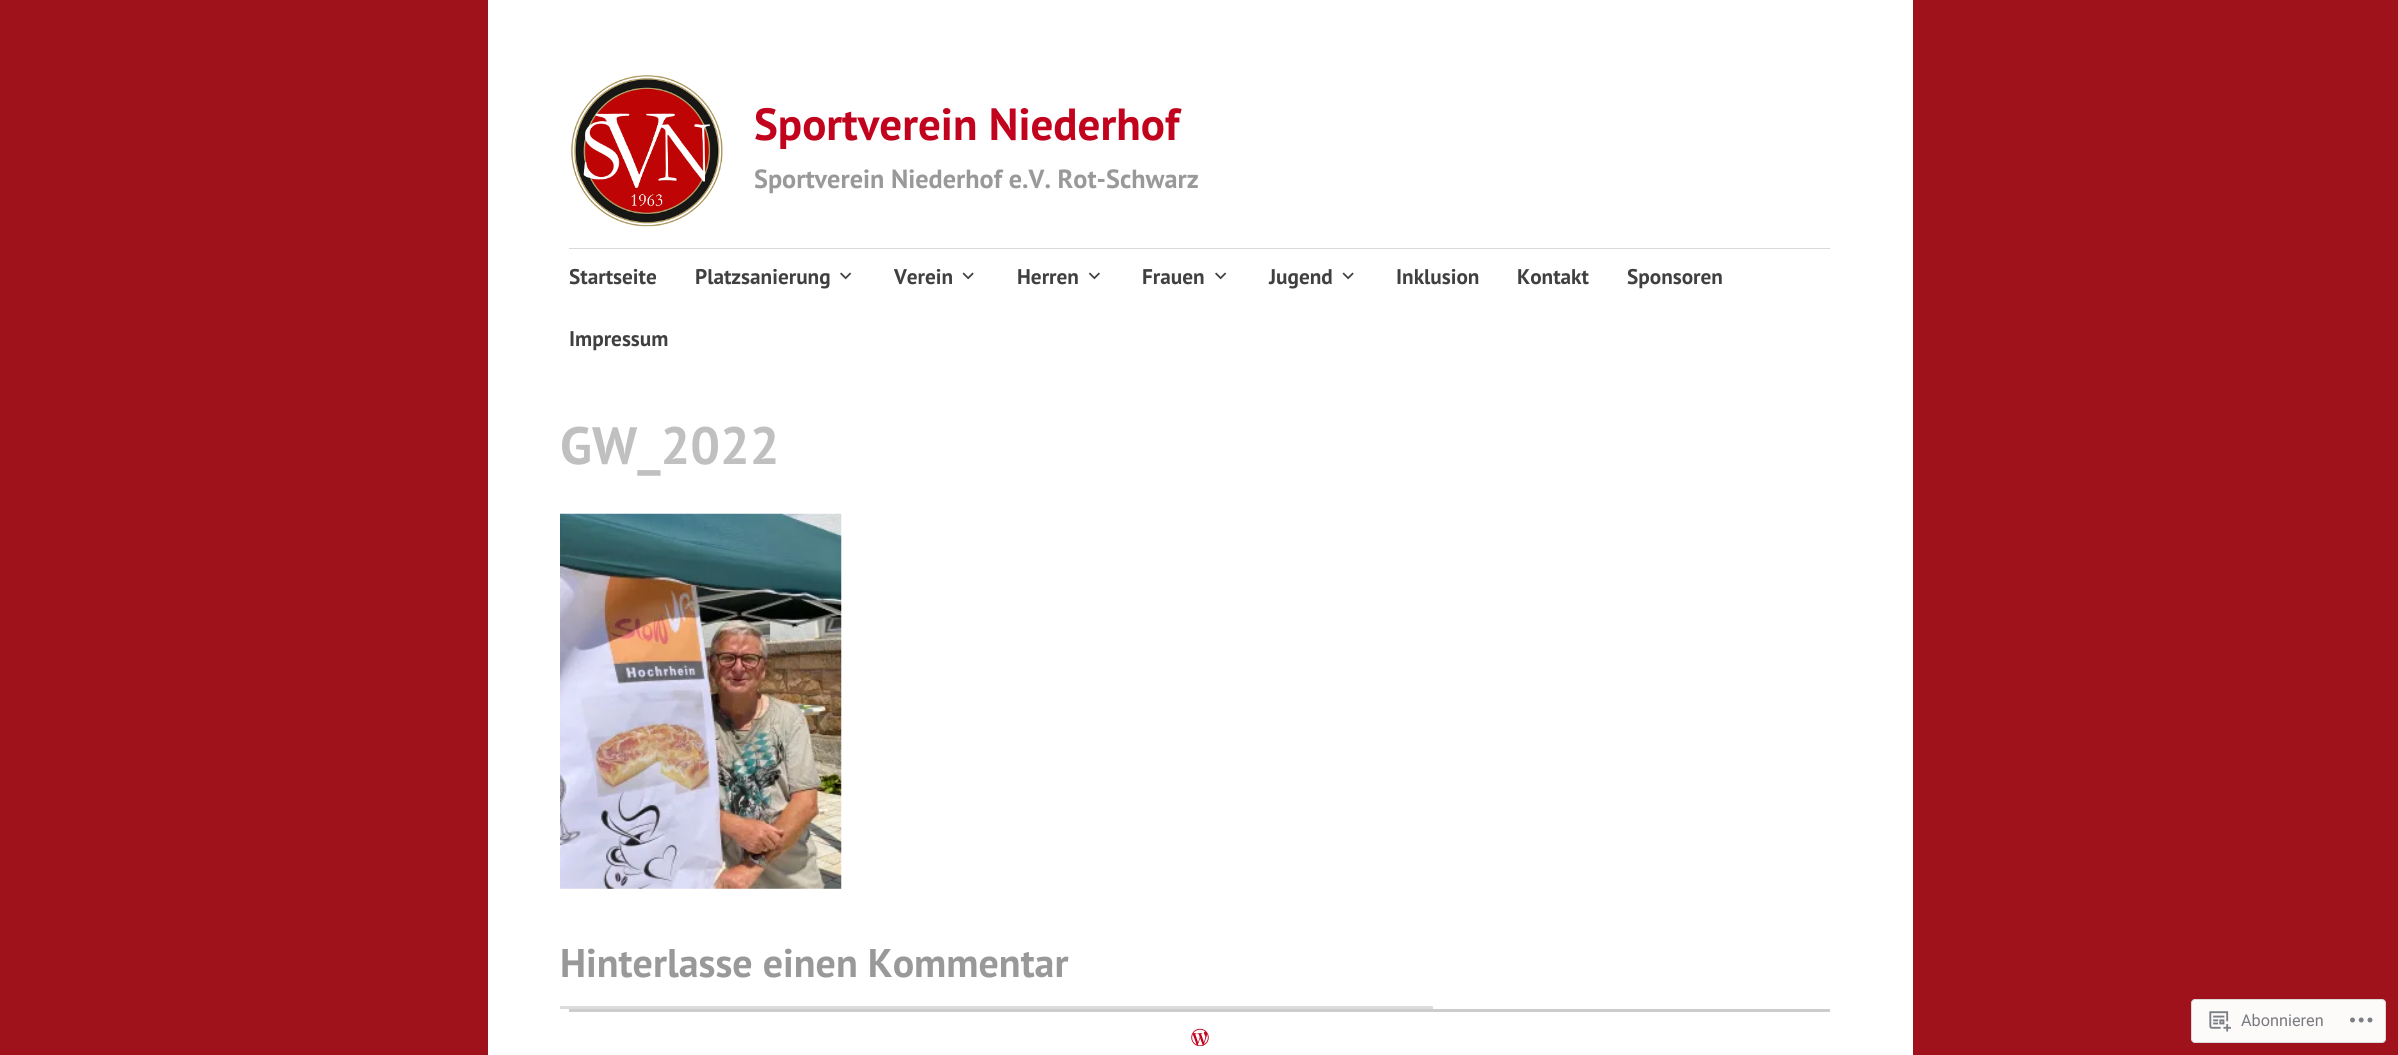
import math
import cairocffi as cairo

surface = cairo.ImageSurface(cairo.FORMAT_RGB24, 2398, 1055)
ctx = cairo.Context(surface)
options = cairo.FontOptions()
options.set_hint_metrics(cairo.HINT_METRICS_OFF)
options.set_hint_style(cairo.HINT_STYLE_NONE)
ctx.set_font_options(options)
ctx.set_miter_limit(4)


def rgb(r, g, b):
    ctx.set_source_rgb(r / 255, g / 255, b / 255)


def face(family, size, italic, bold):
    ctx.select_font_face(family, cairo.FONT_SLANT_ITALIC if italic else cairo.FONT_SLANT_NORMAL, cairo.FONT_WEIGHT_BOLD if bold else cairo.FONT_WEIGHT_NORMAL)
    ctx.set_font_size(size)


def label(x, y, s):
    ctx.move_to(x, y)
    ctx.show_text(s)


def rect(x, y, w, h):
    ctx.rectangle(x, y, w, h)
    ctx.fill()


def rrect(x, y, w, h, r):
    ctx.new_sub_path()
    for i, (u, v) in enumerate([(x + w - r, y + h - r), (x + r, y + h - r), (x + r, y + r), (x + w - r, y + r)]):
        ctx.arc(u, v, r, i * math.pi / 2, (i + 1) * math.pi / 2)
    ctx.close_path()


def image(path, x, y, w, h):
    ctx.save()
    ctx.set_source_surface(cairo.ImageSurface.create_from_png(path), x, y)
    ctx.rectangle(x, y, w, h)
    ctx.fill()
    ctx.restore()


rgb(159, 17, 27)
ctx.paint()
rgb(255, 255, 255)
rect(488, 0, 1425, 1055)
image('image0.png', 571, 75, 152, 152)
face('PT Sans', 45, 0, 1)
rgb(194, 3, 29)
label(754, 140, 'Sportverein Niederhof')
face('PT Sans', 26.25, 0, 1)
rgb(153, 153, 153)
label(754, 188, 'Sportverein Niederhof e.V. Rot-Schwarz')
rgb(217, 217, 217)
rect(569, 248, 1261, 1)
face('PT Sans', 21.25, 0, 1)
rgb(64, 64, 64)
label(569, 284, 'Startseite')
label(695, 284, 'Platzsanierung')
image('image1.png', 840, 272, 12, 8)
label(894, 284, 'Verein')
image('image2.png', 962, 272, 12, 8)
label(1017, 284, 'Herren')
image('image3.png', 1088, 272, 12, 8)
label(1142, 284, 'Frauen')
image('image1.png', 1215, 272, 12, 8)
label(1269, 284, 'Jugend')
image('image2.png', 1342, 272, 12, 8)
label(1396, 284, 'Inklusion')
label(1517, 284, 'Kontakt')
label(1627, 284, 'Sponsoren')
label(569, 346, 'Impressum')
face('PT Sans', 52.5, 0, 1)
rgb(192, 192, 192)
label(560, 464, 'GW_2022')
image('image4.png', 560, 513, 282, 376)
face('PT Sans', 40, 0, 1)
rgb(153, 153, 153)
label(560, 977, 'Hinterlasse einen Kommentar')
rgb(220, 220, 222)
rect(560, 1006, 873, 3)
rgb(204, 204, 204)
rect(569, 1009, 1261, 3)
image('image5.png', 1191, 1028, 18, 18)
rgb(253, 250, 250)
rrect(2191.5, 999.5, 194, 43, 3.5)
ctx.fill_preserve()
rgb(219, 216, 218)
ctx.set_line_width(1)
ctx.stroke()
image('image6.png', 2209, 1011, 22, 21)
face('Roboto', 16.25, 0, 0)
rgb(121, 122, 128)
label(2241, 1026, 'Abonnieren')
image('image7.png', 2350, 1017, 23, 6)
surface.write_to_png('render.png')
